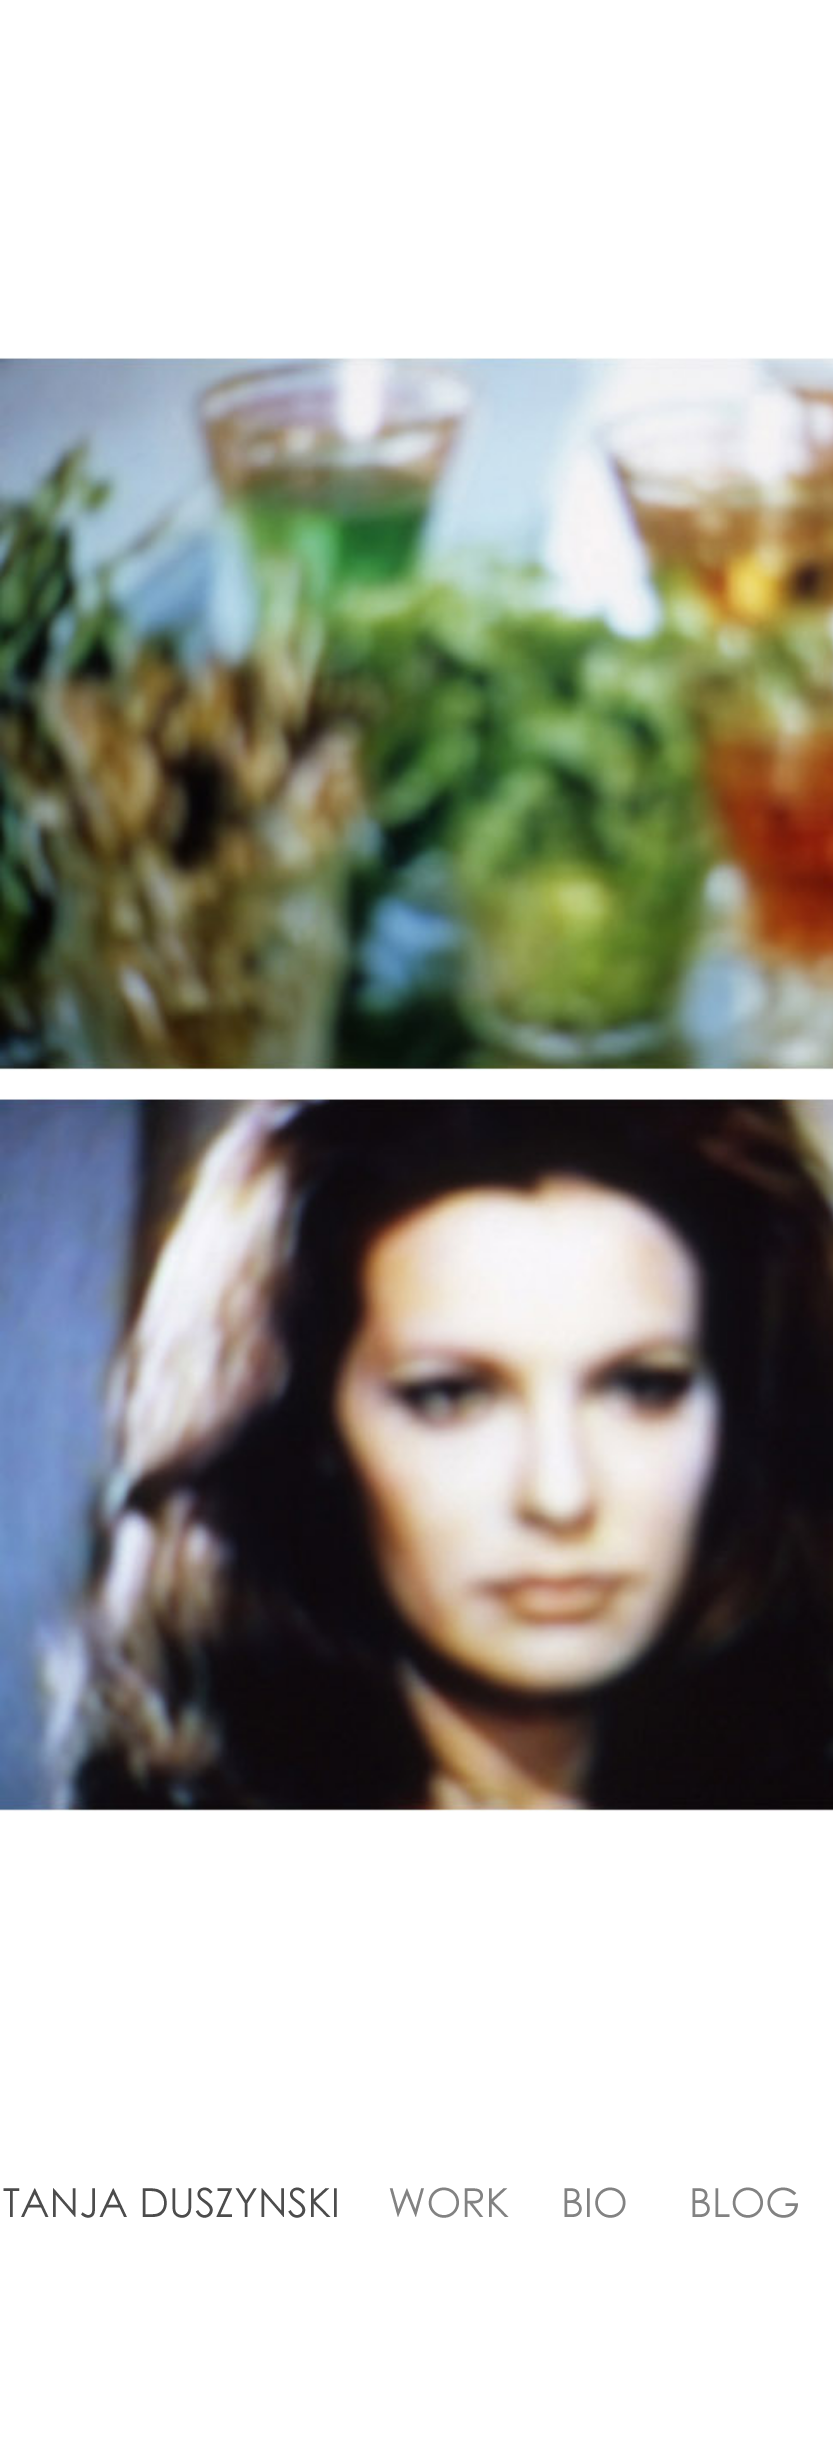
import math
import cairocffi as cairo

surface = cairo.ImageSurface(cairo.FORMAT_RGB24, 833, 2438)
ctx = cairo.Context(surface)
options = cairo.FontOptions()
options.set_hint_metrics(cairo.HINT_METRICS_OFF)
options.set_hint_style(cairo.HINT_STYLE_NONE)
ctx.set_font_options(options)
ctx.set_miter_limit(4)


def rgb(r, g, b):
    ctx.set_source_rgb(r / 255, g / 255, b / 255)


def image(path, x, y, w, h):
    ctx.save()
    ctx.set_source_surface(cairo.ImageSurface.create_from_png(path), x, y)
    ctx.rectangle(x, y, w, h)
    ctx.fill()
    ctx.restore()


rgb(255, 255, 255)
ctx.paint()
image('image0.png', 0, 357, 833, 1455)
image('image1.png', 3, 2187, 334, 31)
image('image2.png', 389, 2187, 120, 31)
image('image3.png', 564, 2187, 62, 31)
image('image4.png', 692, 2187, 106, 31)
surface.write_to_png('render.png')
